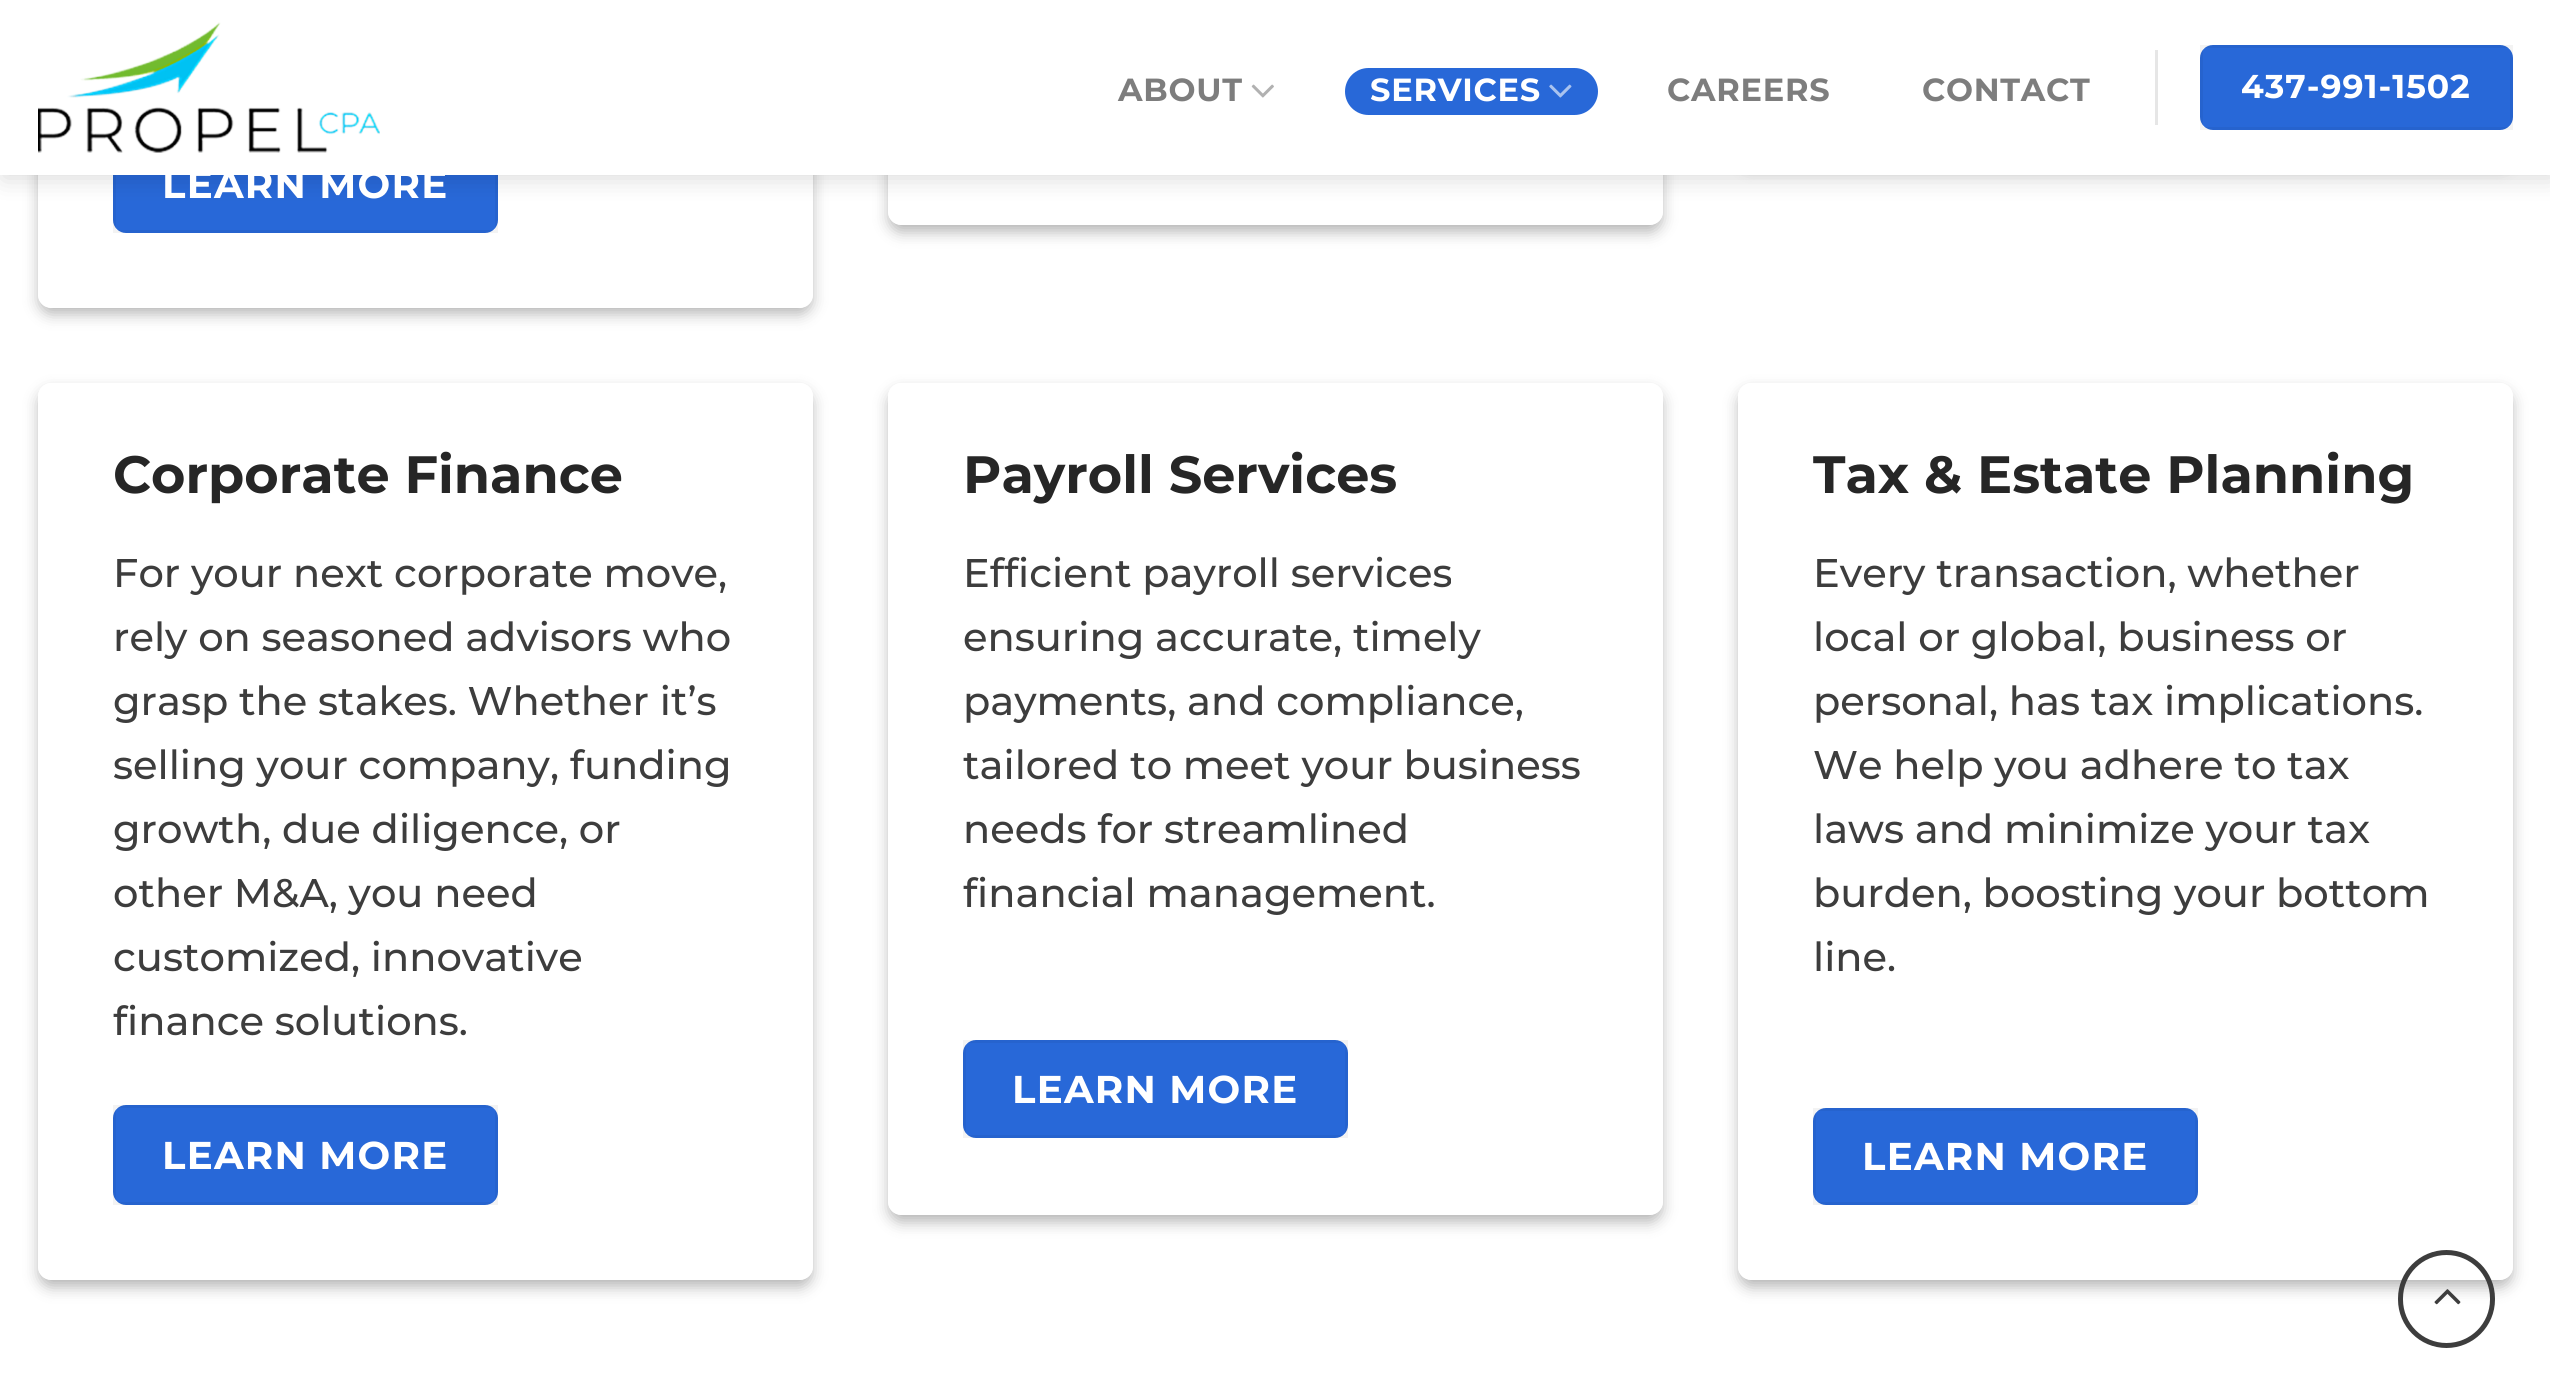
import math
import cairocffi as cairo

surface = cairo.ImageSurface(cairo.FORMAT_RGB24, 2550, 1397)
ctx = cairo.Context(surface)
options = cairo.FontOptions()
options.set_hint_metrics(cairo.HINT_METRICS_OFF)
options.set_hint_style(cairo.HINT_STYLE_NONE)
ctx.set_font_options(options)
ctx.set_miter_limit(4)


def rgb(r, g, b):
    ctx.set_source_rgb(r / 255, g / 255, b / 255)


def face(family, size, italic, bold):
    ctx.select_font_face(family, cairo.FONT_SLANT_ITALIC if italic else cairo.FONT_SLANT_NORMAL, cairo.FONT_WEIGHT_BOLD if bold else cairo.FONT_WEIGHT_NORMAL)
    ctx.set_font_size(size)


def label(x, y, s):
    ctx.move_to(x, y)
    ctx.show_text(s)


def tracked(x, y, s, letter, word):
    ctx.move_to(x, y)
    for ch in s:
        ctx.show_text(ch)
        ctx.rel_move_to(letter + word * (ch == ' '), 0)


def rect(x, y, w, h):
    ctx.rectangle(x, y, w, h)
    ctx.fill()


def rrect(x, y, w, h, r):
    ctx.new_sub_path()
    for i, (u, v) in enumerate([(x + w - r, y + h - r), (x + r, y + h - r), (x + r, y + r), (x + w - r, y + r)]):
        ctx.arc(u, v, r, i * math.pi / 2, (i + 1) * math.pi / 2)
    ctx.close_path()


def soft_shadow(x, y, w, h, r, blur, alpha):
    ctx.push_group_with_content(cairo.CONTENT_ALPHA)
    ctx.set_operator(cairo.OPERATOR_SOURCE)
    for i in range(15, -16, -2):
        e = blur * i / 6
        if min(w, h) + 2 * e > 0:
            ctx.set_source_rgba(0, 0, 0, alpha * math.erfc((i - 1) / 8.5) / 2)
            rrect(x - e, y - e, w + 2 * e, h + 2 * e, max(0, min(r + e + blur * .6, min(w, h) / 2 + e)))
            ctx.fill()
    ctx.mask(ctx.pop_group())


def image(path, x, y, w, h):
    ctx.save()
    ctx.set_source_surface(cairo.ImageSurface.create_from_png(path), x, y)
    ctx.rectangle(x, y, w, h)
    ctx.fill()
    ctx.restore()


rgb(255, 255, 255)
ctx.paint()
ctx.save()
ctx.set_fill_rule(cairo.FILL_RULE_EVEN_ODD)
ctx.new_path()
ctx.move_to(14, 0)
ctx.line_to(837, 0)
ctx.line_to(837, 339)
ctx.line_to(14, 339)
ctx.close_path()
ctx.move_to(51, -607)
ctx.line_to(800, -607)
ctx.curve_to(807, -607, 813, -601, 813, -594)
ctx.line_to(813, 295)
ctx.curve_to(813, 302, 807, 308, 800, 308)
ctx.line_to(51, 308)
ctx.curve_to(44, 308, 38, 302, 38, 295)
ctx.line_to(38, -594)
ctx.curve_to(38, -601, 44, -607, 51, -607)
ctx.close_path()
ctx.clip()
rgb(0, 0, 0)
soft_shadow(38, -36, 775, 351, 13, 7.5, 0.23)
ctx.restore()
ctx.save()
ctx.set_fill_rule(cairo.FILL_RULE_EVEN_ODD)
ctx.new_path()
ctx.move_to(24, 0)
ctx.line_to(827, 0)
ctx.line_to(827, 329)
ctx.line_to(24, 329)
ctx.close_path()
ctx.move_to(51, -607)
ctx.line_to(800, -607)
ctx.curve_to(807, -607, 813, -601, 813, -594)
ctx.line_to(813, 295)
ctx.curve_to(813, 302, 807, 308, 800, 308)
ctx.line_to(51, 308)
ctx.curve_to(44, 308, 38, 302, 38, 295)
ctx.line_to(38, -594)
ctx.curve_to(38, -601, 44, -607, 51, -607)
ctx.close_path()
ctx.clip()
rgb(0, 0, 0)
soft_shadow(48, -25, 755, 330, 2.5, 7.5, 0.16)
ctx.restore()
rgb(40, 104, 216)
rrect(113, 135, 385, 98, 13)
ctx.fill()
ctx.rectangle(114.5, 136.5, 382, 95)
ctx.set_source_rgba(0, 0, 0, 0.05)
ctx.set_line_width(3)
ctx.stroke()
rgb(0, 0, 0)
soft_shadow(3, 3, 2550, 175, 0, 12.5, 0.15)
ctx.save()
ctx.set_fill_rule(cairo.FILL_RULE_EVEN_ODD)
ctx.new_path()
ctx.move_to(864, 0)
ctx.line_to(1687, 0)
ctx.line_to(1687, 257)
ctx.line_to(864, 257)
ctx.close_path()
ctx.move_to(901, -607)
ctx.line_to(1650, -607)
ctx.curve_to(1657, -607, 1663, -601, 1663, -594)
ctx.line_to(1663, 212)
ctx.curve_to(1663, 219, 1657, 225, 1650, 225)
ctx.line_to(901, 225)
ctx.curve_to(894, 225, 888, 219, 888, 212)
ctx.line_to(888, -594)
ctx.curve_to(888, -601, 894, -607, 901, -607)
ctx.close_path()
ctx.clip()
soft_shadow(888, -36, 775, 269, 13, 7.5, 0.23)
ctx.restore()
ctx.save()
ctx.set_fill_rule(cairo.FILL_RULE_EVEN_ODD)
ctx.new_path()
ctx.move_to(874, 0)
ctx.line_to(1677, 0)
ctx.line_to(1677, 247)
ctx.line_to(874, 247)
ctx.close_path()
ctx.move_to(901, -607)
ctx.line_to(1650, -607)
ctx.curve_to(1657, -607, 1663, -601, 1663, -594)
ctx.line_to(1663, 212)
ctx.curve_to(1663, 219, 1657, 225, 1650, 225)
ctx.line_to(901, 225)
ctx.curve_to(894, 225, 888, 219, 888, 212)
ctx.line_to(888, -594)
ctx.curve_to(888, -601, 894, -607, 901, -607)
ctx.close_path()
ctx.clip()
soft_shadow(898, -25, 755, 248, 2.5, 7.5, 0.16)
ctx.restore()
soft_shadow(1738, -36, 775, 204, 13, 7.5, 0.23)
rgb(255, 255, 255)
rect(0, 0, 2550, 175)
image('image0.png', 38, 22, 342, 131)
face('Montserrat', 32, 0, 1)
rgb(125, 125, 125)
tracked(1118, 101, 'ABOUT', 0.75, 0)
image('image1.png', 1251, 84, 23, 14)
rgb(40, 104, 216)
rrect(1345, 68, 253, 47, 23.5)
ctx.fill()
rgb(255, 255, 255)
tracked(1370, 101, 'SERVICES', 0.75, 0)
image('image2.png', 1549, 84, 23, 14)
rgb(125, 125, 125)
tracked(1667, 101, 'CAREERS', 0.75, 0)
tracked(1922, 101, 'CONTACT', 0.75, 0)
rgb(230, 230, 230)
rect(2155, 50, 3, 75)
rgb(40, 104, 216)
rrect(2200, 45, 313, 85, 13)
ctx.fill()
ctx.rectangle(2201.5, 46.5, 310, 82)
ctx.set_source_rgba(0, 0, 0, 0.05)
ctx.stroke()
face('Montserrat', 33, 0, 1)
rgb(255, 255, 255)
tracked(2241, 98, '437-991-1502', 1, 0)
face('Montserrat', 38.75, 0, 1)
tracked(162, 198, 'LEARN MORE', 1.25, 0)
ctx.save()
ctx.set_fill_rule(cairo.FILL_RULE_EVEN_ODD)
ctx.new_path()
ctx.move_to(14, 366)
ctx.line_to(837, 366)
ctx.line_to(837, 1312)
ctx.line_to(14, 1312)
ctx.close_path()
ctx.move_to(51, 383)
ctx.line_to(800, 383)
ctx.curve_to(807, 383, 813, 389, 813, 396)
ctx.line_to(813, 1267)
ctx.curve_to(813, 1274, 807, 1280, 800, 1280)
ctx.line_to(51, 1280)
ctx.curve_to(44, 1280, 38, 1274, 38, 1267)
ctx.line_to(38, 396)
ctx.curve_to(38, 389, 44, 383, 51, 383)
ctx.close_path()
ctx.clip()
rgb(0, 0, 0)
soft_shadow(38, 390, 775, 898, 13, 7.5, 0.23)
ctx.restore()
ctx.save()
ctx.set_fill_rule(cairo.FILL_RULE_EVEN_ODD)
ctx.new_path()
ctx.move_to(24, 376)
ctx.line_to(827, 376)
ctx.line_to(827, 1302)
ctx.line_to(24, 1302)
ctx.close_path()
ctx.move_to(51, 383)
ctx.line_to(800, 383)
ctx.curve_to(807, 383, 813, 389, 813, 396)
ctx.line_to(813, 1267)
ctx.curve_to(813, 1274, 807, 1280, 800, 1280)
ctx.line_to(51, 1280)
ctx.curve_to(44, 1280, 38, 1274, 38, 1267)
ctx.line_to(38, 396)
ctx.curve_to(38, 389, 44, 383, 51, 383)
ctx.close_path()
ctx.clip()
rgb(0, 0, 0)
soft_shadow(48, 400, 755, 878, 2.5, 7.5, 0.16)
ctx.restore()
face('Montserrat', 52.5, 0, 1)
rgb(38, 38, 38)
label(113, 493, 'Corporate Finance')
face('Montserrat Medium', 40, 0, 0)
rgb(61, 61, 61)
label(113, 587, 'For your next corporate move,')
label(113, 651, 'rely on seasoned advisors who')
label(113, 715, 'grasp the stakes. Whether it’s')
label(113, 779, 'selling your company, funding')
label(113, 843, 'growth, due diligence, or')
label(113, 907, 'other M&A, you need')
label(113, 971, 'customized, innovative')
label(113, 1035, 'finance solutions.')
rgb(40, 104, 216)
rrect(113, 1105, 385, 100, 13)
ctx.fill()
ctx.rectangle(114.5, 1106.5, 382, 97)
ctx.set_source_rgba(0, 0, 0, 0.05)
ctx.stroke()
face('Montserrat', 38.75, 0, 1)
rgb(255, 255, 255)
tracked(162, 1169, 'LEARN MORE', 1.25, 0)
ctx.save()
ctx.set_fill_rule(cairo.FILL_RULE_EVEN_ODD)
ctx.new_path()
ctx.move_to(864, 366)
ctx.line_to(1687, 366)
ctx.line_to(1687, 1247)
ctx.line_to(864, 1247)
ctx.close_path()
ctx.move_to(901, 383)
ctx.line_to(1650, 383)
ctx.curve_to(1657, 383, 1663, 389, 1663, 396)
ctx.line_to(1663, 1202)
ctx.curve_to(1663, 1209, 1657, 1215, 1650, 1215)
ctx.line_to(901, 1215)
ctx.curve_to(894, 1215, 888, 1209, 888, 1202)
ctx.line_to(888, 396)
ctx.curve_to(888, 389, 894, 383, 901, 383)
ctx.close_path()
ctx.clip()
rgb(0, 0, 0)
soft_shadow(888, 390, 775, 833, 13, 7.5, 0.23)
ctx.restore()
ctx.save()
ctx.set_fill_rule(cairo.FILL_RULE_EVEN_ODD)
ctx.new_path()
ctx.move_to(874, 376)
ctx.line_to(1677, 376)
ctx.line_to(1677, 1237)
ctx.line_to(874, 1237)
ctx.close_path()
ctx.move_to(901, 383)
ctx.line_to(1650, 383)
ctx.curve_to(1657, 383, 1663, 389, 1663, 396)
ctx.line_to(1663, 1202)
ctx.curve_to(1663, 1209, 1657, 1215, 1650, 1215)
ctx.line_to(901, 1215)
ctx.curve_to(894, 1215, 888, 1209, 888, 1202)
ctx.line_to(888, 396)
ctx.curve_to(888, 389, 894, 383, 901, 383)
ctx.close_path()
ctx.clip()
rgb(0, 0, 0)
soft_shadow(898, 400, 755, 813, 2.5, 7.5, 0.16)
ctx.restore()
face('Montserrat', 52.5, 0, 1)
rgb(38, 38, 38)
label(963, 493, 'Payroll Services')
face('Montserrat Medium', 40, 0, 0)
rgb(61, 61, 61)
label(963, 587, 'Efficient payroll services')
label(963, 651, 'ensuring accurate, timely')
label(963, 715, 'payments, and compliance,')
label(963, 779, 'tailored to meet your business')
label(963, 843, 'needs for streamlined')
label(963, 907, 'financial management.')
rgb(40, 104, 216)
rrect(963, 1040, 385, 98, 13)
ctx.fill()
ctx.rectangle(964.5, 1041.5, 382, 95)
ctx.set_source_rgba(0, 0, 0, 0.05)
ctx.stroke()
face('Montserrat', 38.75, 0, 1)
rgb(255, 255, 255)
tracked(1012, 1103, 'LEARN MORE', 1.25, 0)
ctx.save()
ctx.set_fill_rule(cairo.FILL_RULE_EVEN_ODD)
ctx.new_path()
ctx.move_to(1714, 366)
ctx.line_to(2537, 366)
ctx.line_to(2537, 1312)
ctx.line_to(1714, 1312)
ctx.close_path()
ctx.move_to(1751, 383)
ctx.line_to(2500, 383)
ctx.curve_to(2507, 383, 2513, 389, 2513, 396)
ctx.line_to(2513, 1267)
ctx.curve_to(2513, 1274, 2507, 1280, 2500, 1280)
ctx.line_to(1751, 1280)
ctx.curve_to(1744, 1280, 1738, 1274, 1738, 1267)
ctx.line_to(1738, 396)
ctx.curve_to(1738, 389, 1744, 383, 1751, 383)
ctx.close_path()
ctx.clip()
rgb(0, 0, 0)
soft_shadow(1738, 390, 775, 898, 13, 7.5, 0.23)
ctx.restore()
ctx.save()
ctx.set_fill_rule(cairo.FILL_RULE_EVEN_ODD)
ctx.new_path()
ctx.move_to(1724, 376)
ctx.line_to(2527, 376)
ctx.line_to(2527, 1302)
ctx.line_to(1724, 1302)
ctx.close_path()
ctx.move_to(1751, 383)
ctx.line_to(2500, 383)
ctx.curve_to(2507, 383, 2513, 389, 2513, 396)
ctx.line_to(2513, 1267)
ctx.curve_to(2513, 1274, 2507, 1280, 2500, 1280)
ctx.line_to(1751, 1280)
ctx.curve_to(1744, 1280, 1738, 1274, 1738, 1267)
ctx.line_to(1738, 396)
ctx.curve_to(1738, 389, 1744, 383, 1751, 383)
ctx.close_path()
ctx.clip()
rgb(0, 0, 0)
soft_shadow(1748, 400, 755, 878, 2.5, 7.5, 0.16)
ctx.restore()
face('Montserrat', 52.5, 0, 1)
rgb(38, 38, 38)
label(1813, 493, 'Tax & Estate Planning')
face('Montserrat Medium', 40, 0, 0)
rgb(61, 61, 61)
label(1813, 587, 'Every transaction, whether')
label(1813, 651, 'local or global, business or')
label(1813, 715, 'personal, has tax implications.')
label(1813, 779, 'We help you adhere to tax')
label(1813, 843, 'laws and minimize your tax')
label(1813, 907, 'burden, boosting your bottom')
label(1813, 971, 'line.')
rgb(40, 104, 216)
rrect(1813, 1108, 385, 97, 13)
ctx.fill()
ctx.rectangle(1814.5, 1109.5, 382, 94)
ctx.set_source_rgba(0, 0, 0, 0.05)
ctx.stroke()
face('Montserrat', 38.75, 0, 1)
rgb(255, 255, 255)
tracked(1862, 1170, 'LEARN MORE', 1.25, 0)
rrect(2400.5, 1252.5, 92, 93, 46)
rgb(61, 61, 61)
ctx.set_line_width(5)
ctx.stroke()
image('image3.png', 2434, 1289, 27, 16)
surface.write_to_png('render.png')
